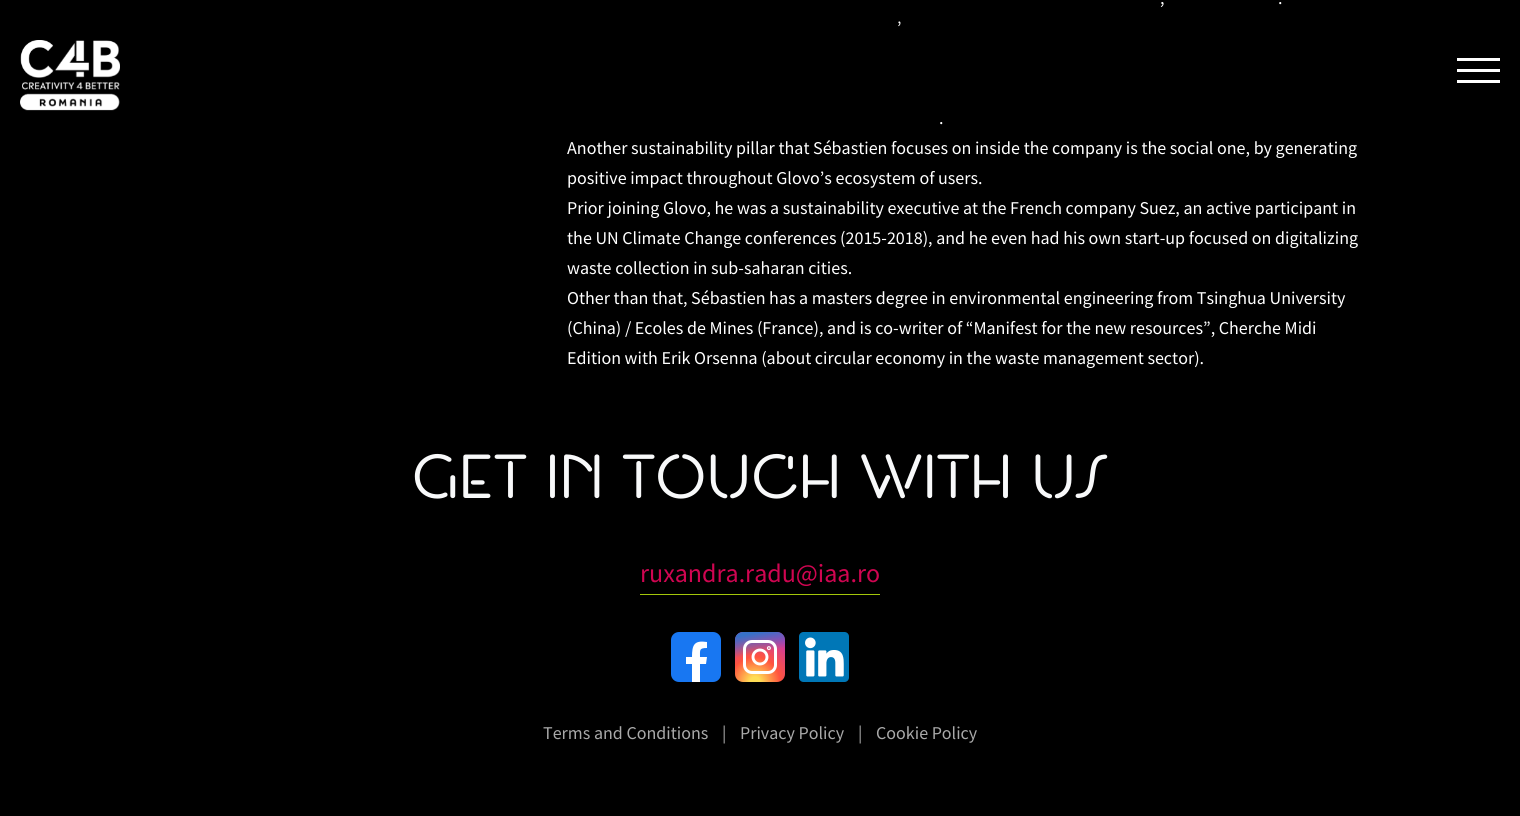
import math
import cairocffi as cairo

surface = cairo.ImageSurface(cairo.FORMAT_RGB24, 1520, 816)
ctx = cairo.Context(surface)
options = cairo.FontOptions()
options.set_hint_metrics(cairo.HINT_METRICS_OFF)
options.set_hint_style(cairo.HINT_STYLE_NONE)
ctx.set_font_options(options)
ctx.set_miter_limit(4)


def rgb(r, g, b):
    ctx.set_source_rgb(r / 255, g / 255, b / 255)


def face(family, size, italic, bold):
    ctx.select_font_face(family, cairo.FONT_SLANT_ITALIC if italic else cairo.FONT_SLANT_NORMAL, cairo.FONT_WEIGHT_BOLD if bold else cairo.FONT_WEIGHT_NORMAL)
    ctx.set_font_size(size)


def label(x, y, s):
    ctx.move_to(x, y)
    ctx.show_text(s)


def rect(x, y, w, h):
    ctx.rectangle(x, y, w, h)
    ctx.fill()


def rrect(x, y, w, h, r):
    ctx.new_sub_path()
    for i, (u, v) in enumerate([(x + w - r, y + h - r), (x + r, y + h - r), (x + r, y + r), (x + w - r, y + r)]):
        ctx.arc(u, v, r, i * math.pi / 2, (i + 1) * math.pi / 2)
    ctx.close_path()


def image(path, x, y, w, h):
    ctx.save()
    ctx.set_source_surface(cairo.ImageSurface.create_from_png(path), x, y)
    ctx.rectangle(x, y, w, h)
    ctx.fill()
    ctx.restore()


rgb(0, 0, 0)
ctx.paint()
face('Source Sans Pro', 18, 0, 0)
rgb(255, 255, 255)
label(1160, 4, ',')
label(1278, 4, '.')
label(897, 34, '’')
label(939, 124, '.')
label(567, 154, 'Another sustainability pillar that Sébastien focuses on inside the company is the social one, by generating')
label(567, 184, 'positive impact throughout Glovo’s ecosystem of users.')
label(567, 214, 'Prior joining Glovo, he was a sustainability executive at the French company Suez, an active participant in')
label(567, 244, 'the UN Climate Change conferences (2015-2018), and he even had his own start-up focused on digitalizing')
label(567, 274, 'waste collection in sub-saharan cities.')
label(567, 304, 'Other than that, Sébastien has a masters degree in environmental engineering from Tsinghua University')
label(567, 334, '(China) / Ecoles de Mines (France), and is co-writer of “Manifest for the new resources”, Cherche Midi')
label(567, 364, 'Edition with Erik Orsenna (about circular economy in the waste management sector).')
image('image0.png', 20, 40, 100, 71)
rect(1457, 58, 43, 3)
rect(1457, 69, 43, 3)
rect(1457, 80, 43, 3)
face('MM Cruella', 62, 0, 0)
rgb(248, 249, 250)
label(412, 498, 'GET IN TOUCH WITH US')
face('Source Sans Pro', 26, 0, 0)
rgb(208, 5, 81)
label(640, 582, 'ruxandra.radu@iaa.ro')
rgb(163, 198, 10)
rect(640, 594, 240, 1)
rgb(24, 119, 242)
rrect(671, 632, 50, 50, 8)
ctx.fill()
rgb(255, 255, 255)
ctx.new_path()
ctx.move_to(706, 664)
ctx.line_to(707, 657)
ctx.line_to(700, 657)
ctx.curve_to(700, 650, 699, 648, 707, 648)
ctx.line_to(707, 642)
ctx.curve_to(694, 640, 692, 645, 692, 657)
ctx.line_to(686, 657)
ctx.line_to(686, 664)
ctx.line_to(692, 664)
ctx.line_to(692, 682)
ctx.line_to(700, 682)
ctx.line_to(700, 664)
ctx.close_path()
ctx.fill()
gradient = cairo.RadialGradient(755, 682, 0, 755, 682, 50)
gradient.add_color_stop_rgba(0.1, 1, 0.867, 0.333, 1)
gradient.add_color_stop_rgba(0.5, 1, 0.329, 0.243, 1)
gradient.add_color_stop_rgba(1, 0.784, 0.216, 0.671, 1)
ctx.set_source(gradient)
rrect(735, 632, 50, 50, 8)
ctx.fill()
gradient = cairo.LinearGradient(735, 632, 745, 682)
gradient.add_color_stop_rgba(0.1, 0.216, 0.443, 0.784, 1)
gradient.add_color_stop_rgba(0.5, 0.216, 0.443, 0.784, 0)
ctx.set_source(gradient)
rrect(735, 632, 50, 50, 8)
ctx.fill()
rrect(744.5, 641.5, 31, 31, 7.5)
rgb(255, 255, 255)
ctx.set_line_width(3)
ctx.stroke()
ctx.arc(760, 657, 7, 0, 2 * math.pi)
ctx.set_line_width(2.9)
ctx.stroke()
ctx.arc(768.9, 648.1, 0.6, 0, 2 * math.pi)
ctx.stroke()
image('image1.png', 799, 632, 50, 50)
face('Source Sans Pro', 18, 0, 0)
rgb(169, 169, 169)
label(543, 739, 'Terms and Conditions')
label(722, 739, '|')
label(740, 739, 'Privacy Policy')
label(858, 739, '|')
label(876, 739, 'Cookie Policy')
surface.write_to_png('render.png')
